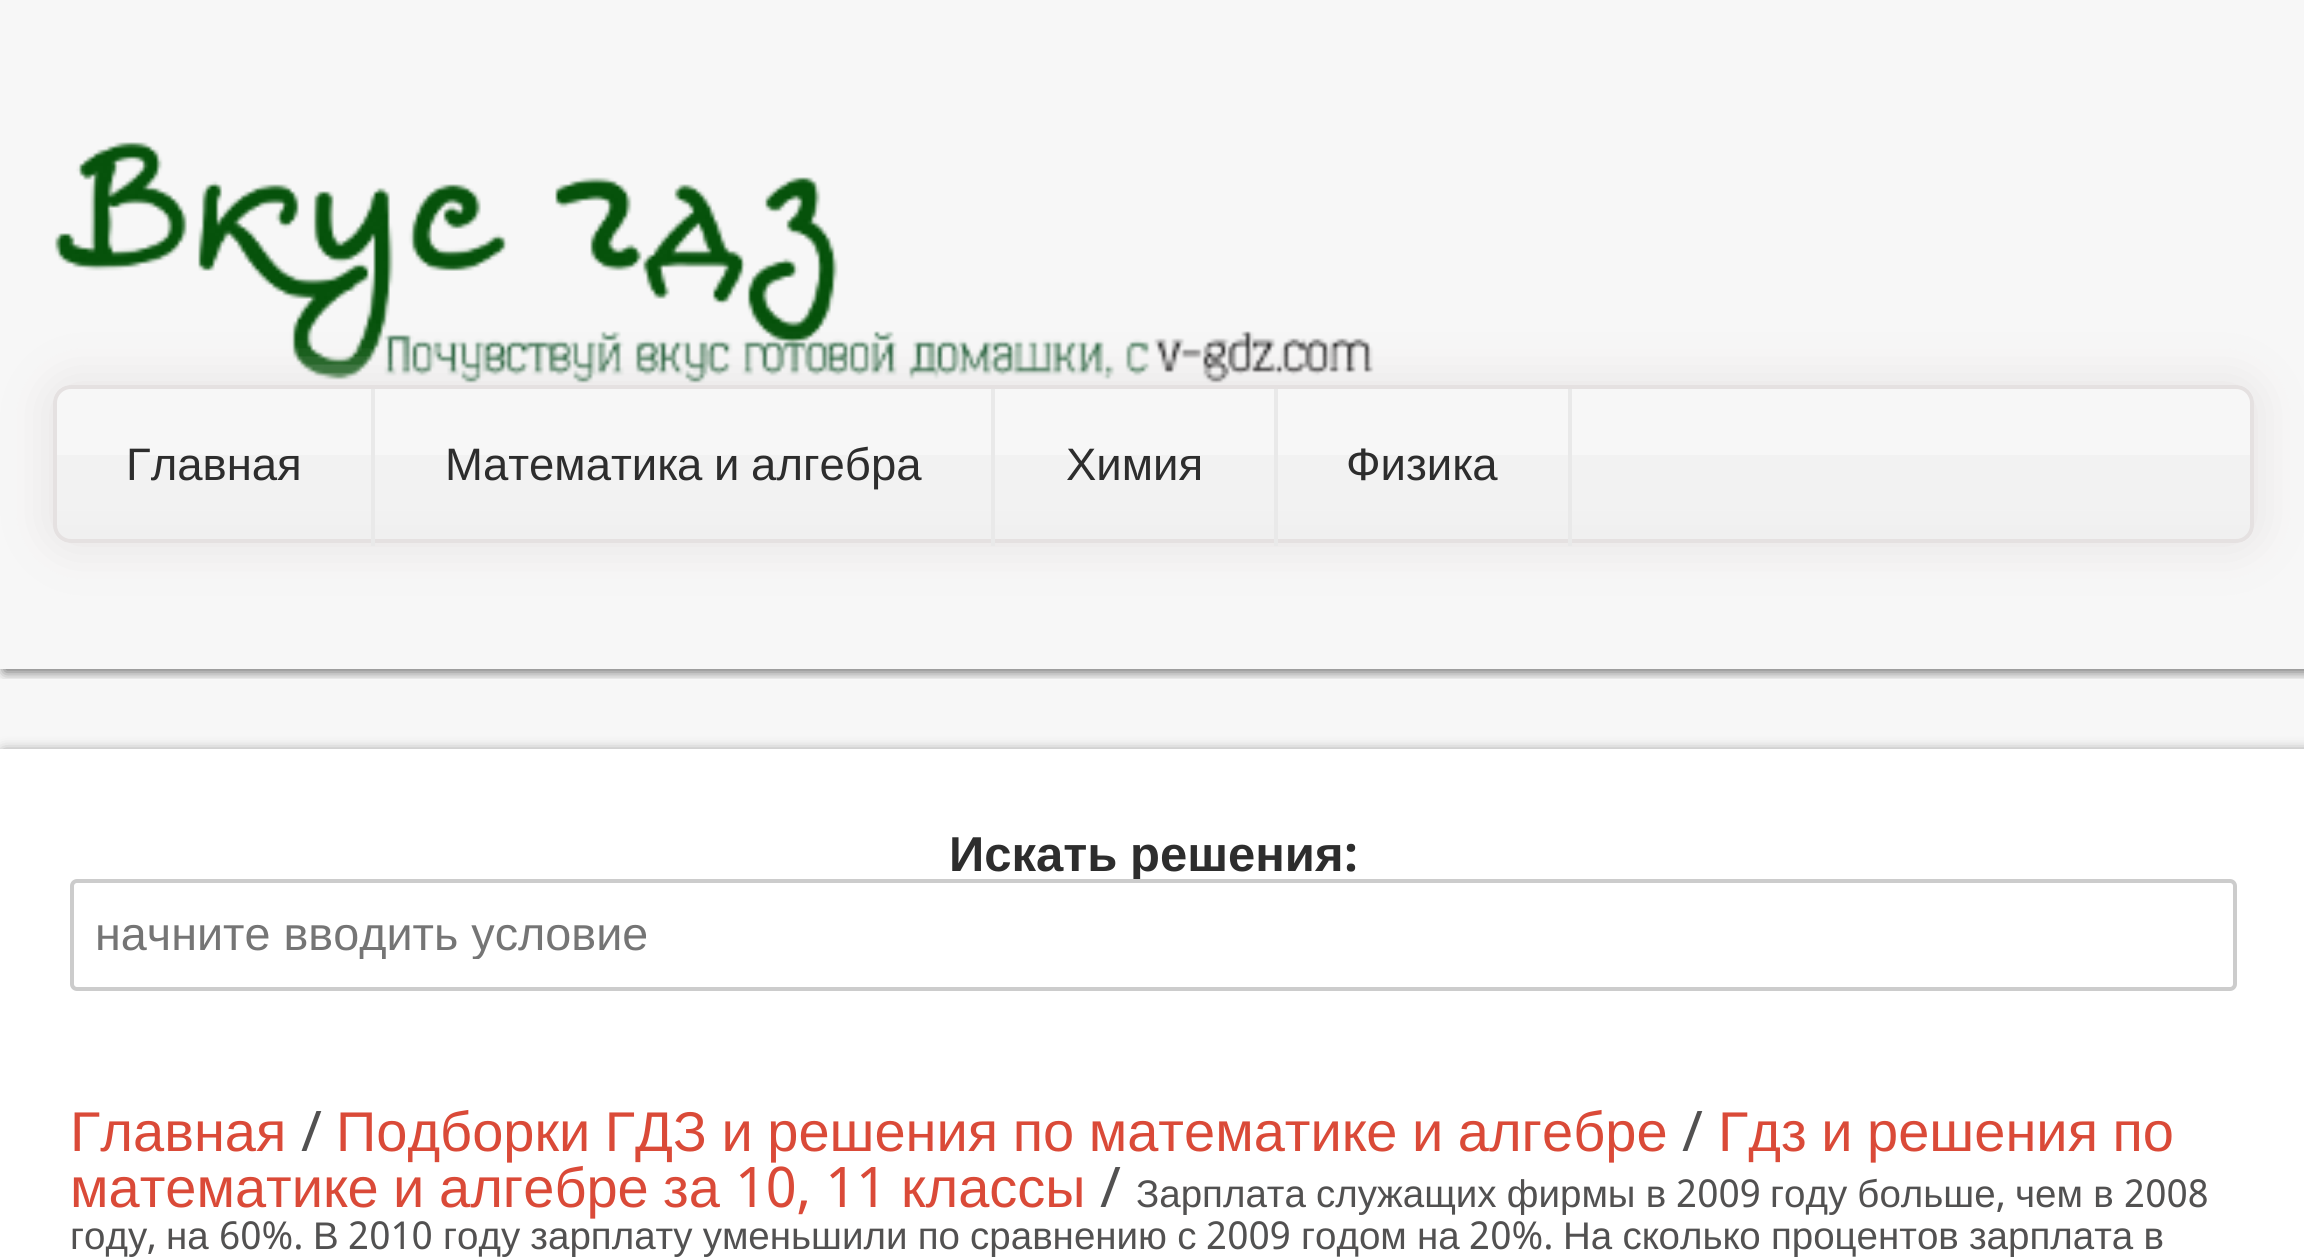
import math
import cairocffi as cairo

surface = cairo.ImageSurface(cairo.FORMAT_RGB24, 2304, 1257)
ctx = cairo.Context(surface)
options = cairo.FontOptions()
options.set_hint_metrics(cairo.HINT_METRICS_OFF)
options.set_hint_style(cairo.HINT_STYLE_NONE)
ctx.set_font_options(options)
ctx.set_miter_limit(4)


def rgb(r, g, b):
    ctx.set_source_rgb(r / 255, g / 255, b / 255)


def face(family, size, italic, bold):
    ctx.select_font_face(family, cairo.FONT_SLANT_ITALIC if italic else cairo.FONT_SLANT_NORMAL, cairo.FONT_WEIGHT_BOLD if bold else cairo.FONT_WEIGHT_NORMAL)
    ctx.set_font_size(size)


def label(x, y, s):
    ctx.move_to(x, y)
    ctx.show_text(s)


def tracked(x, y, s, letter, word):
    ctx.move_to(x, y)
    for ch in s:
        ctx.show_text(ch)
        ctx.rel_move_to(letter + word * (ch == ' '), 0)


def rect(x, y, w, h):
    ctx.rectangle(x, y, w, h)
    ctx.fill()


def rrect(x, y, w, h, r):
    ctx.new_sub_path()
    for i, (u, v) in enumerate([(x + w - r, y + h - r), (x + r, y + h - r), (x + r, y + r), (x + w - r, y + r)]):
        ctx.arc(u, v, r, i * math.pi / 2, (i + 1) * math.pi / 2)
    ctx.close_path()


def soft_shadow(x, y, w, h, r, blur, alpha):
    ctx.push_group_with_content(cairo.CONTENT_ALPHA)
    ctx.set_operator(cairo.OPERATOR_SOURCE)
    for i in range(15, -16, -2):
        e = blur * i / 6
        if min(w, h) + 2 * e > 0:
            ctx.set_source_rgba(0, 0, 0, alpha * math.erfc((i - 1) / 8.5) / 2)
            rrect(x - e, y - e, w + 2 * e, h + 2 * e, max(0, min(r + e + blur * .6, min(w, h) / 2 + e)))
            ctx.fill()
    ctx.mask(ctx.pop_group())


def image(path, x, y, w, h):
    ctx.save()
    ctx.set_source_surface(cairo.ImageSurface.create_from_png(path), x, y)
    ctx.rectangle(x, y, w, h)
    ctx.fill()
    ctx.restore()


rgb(255, 255, 255)
ctx.paint()
rgb(50, 50, 50)
soft_shadow(4, 4, 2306, 668, 0, 7, 0.75)
rgb(247, 247, 247)
rect(0, 0, 2304, 669)
image('image0.png', 54, 142, 1320, 241)
ctx.save()
ctx.set_fill_rule(cairo.FILL_RULE_EVEN_ODD)
ctx.new_path()
ctx.move_to(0, 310)
ctx.line_to(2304, 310)
ctx.line_to(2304, 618)
ctx.line_to(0, 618)
ctx.close_path()
ctx.move_to(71, 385)
ctx.line_to(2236, 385)
ctx.curve_to(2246, 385, 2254, 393, 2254, 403)
ctx.line_to(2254, 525)
ctx.curve_to(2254, 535, 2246, 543, 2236, 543)
ctx.line_to(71, 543)
ctx.curve_to(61, 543, 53, 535, 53, 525)
ctx.line_to(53, 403)
ctx.curve_to(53, 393, 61, 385, 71, 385)
ctx.close_path()
ctx.clip()
rgb(229, 225, 225)
soft_shadow(53, 385, 2201, 158, 18, 24.5, 1)
ctx.restore()
image('image1.png', 53, 455, 2201, 87)
rrect(55, 387, 2197, 154, 16)
rgb(229, 225, 225)
ctx.set_line_width(4)
ctx.stroke()
rgb(233, 233, 233)
rect(371, 389, 4, 157)
face('Liberation Sans', 45.5, 0, 0)
rgb(45, 45, 45)
label(126, 480, 'Главная')
rgb(233, 233, 233)
rect(991, 389, 4, 157)
rgb(45, 45, 45)
tracked(445, 480, 'Математика и алгебра', 0, -1)
rgb(233, 233, 233)
rect(1274, 389, 4, 157)
rgb(45, 45, 45)
label(1066, 480, 'Химия')
rgb(233, 233, 233)
rect(1568, 389, 4, 157)
rgb(45, 45, 45)
label(1346, 480, 'Физика')
rgb(247, 247, 247)
rect(0, 679, 2304, 70)
rgb(50, 50, 50)
soft_shadow(4, 753, 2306, 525, 0, 7, 0.75)
rgb(255, 255, 255)
rect(0, 749, 2304, 508)
face('Liberation Sans', 49, 0, 1)
rgb(45, 45, 45)
tracked(949, 871, 'Искать решения', 0, -1)
face('Droid Sans', 49, 0, 1)
label(1344, 871, ':')
rgb(255, 255, 255)
rrect(72, 881, 2163, 108, 5)
ctx.fill_preserve()
rgb(204, 204, 204)
ctx.stroke()
ctx.save()
ctx.rectangle(95, 907, 2117, 52)
ctx.clip()
face('Liberation Sans', 46.75, 0, 0)
rgb(117, 117, 117)
label(95, 950, 'начните вводить условие')
ctx.restore()
face('Liberation Sans', 56, 0, 0)
rgb(218, 74, 56)
label(70, 1151, 'Главная')
face('Droid Sans', 56, 0, 0)
rgb(82, 81, 81)
label(301, 1151, '/')
face('Liberation Sans', 56, 0, 0)
rgb(218, 74, 56)
tracked(336, 1151, 'Подборки ГДЗ и решения по математике и алгебре', 0, -1)
face('Droid Sans', 56, 0, 0)
rgb(82, 81, 81)
label(1682, 1151, '/')
face('Liberation Sans', 56, 0, 0)
rgb(218, 74, 56)
tracked(1718, 1151, 'Гдз и решения по', 0, -1)
label(70, 1207, 'математике')
label(393, 1207, 'и')
label(439, 1207, 'алгебре')
label(663, 1207, 'за')
face('Droid Sans', 56, 0, 0)
label(735, 1207, '10, 11')
face('Liberation Sans', 56, 0, 0)
label(901, 1207, 'классы')
face('Droid Sans', 56, 0, 0)
rgb(82, 81, 81)
label(1100, 1207, '/')
face('Liberation Sans', 38.5, 0, 0)
tracked(1136, 1207, 'Зарплата служащих фирмы в', 0, -0.5)
face('Droid Sans', 38.5, 0, 0)
label(1676, 1207, '2009')
face('Liberation Sans', 38.5, 0, 0)
tracked(1770, 1207, 'году больше', 0, -0.5)
face('Droid Sans', 38.5, 0, 0)
label(1996, 1207, ',')
face('Liberation Sans', 38.5, 0, 0)
tracked(2015, 1207, 'чем в', 0, -0.5)
face('Droid Sans', 38.5, 0, 0)
label(2124, 1207, '2008')
face('Liberation Sans', 38.5, 0, 0)
label(70, 1249, 'году')
face('Droid Sans', 38.5, 0, 0)
label(147, 1249, ',')
face('Liberation Sans', 38.5, 0, 0)
label(166, 1249, 'на')
face('Droid Sans', 38.5, 0, 0)
label(219, 1249, '60%.')
face('Liberation Sans', 38.5, 0, 0)
label(313, 1249, 'В')
face('Droid Sans', 38.5, 0, 0)
label(348, 1249, '2010')
face('Liberation Sans', 38.5, 0, 0)
tracked(443, 1249, 'году зарплату уменьшили по сравнению с', 0, -0.5)
face('Droid Sans', 38.5, 0, 0)
label(1206, 1249, '2009')
face('Liberation Sans', 38.5, 0, 0)
tracked(1301, 1249, 'годом на', 0, -0.5)
face('Droid Sans', 38.5, 0, 0)
label(1469, 1249, '20%.')
face('Liberation Sans', 38.5, 0, 0)
tracked(1563, 1249, 'На сколько процентов зарплата в', 0, -0.5)
surface.write_to_png('render.png')
